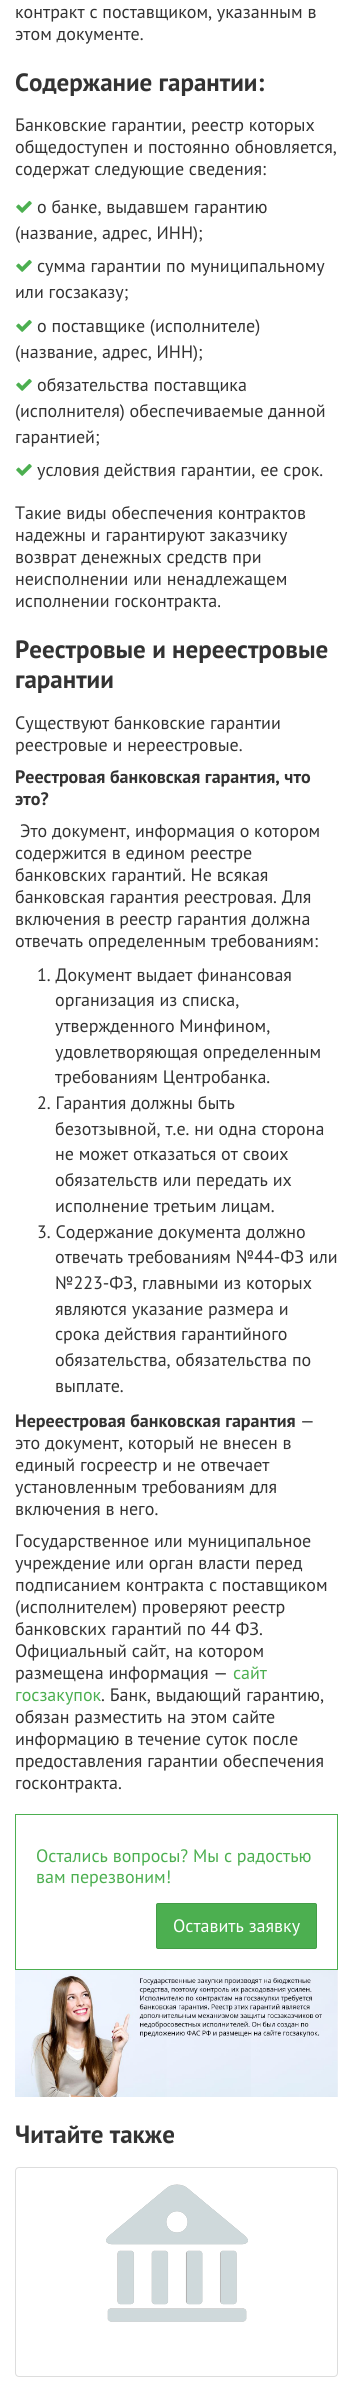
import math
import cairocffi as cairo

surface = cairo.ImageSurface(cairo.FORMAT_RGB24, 353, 2402)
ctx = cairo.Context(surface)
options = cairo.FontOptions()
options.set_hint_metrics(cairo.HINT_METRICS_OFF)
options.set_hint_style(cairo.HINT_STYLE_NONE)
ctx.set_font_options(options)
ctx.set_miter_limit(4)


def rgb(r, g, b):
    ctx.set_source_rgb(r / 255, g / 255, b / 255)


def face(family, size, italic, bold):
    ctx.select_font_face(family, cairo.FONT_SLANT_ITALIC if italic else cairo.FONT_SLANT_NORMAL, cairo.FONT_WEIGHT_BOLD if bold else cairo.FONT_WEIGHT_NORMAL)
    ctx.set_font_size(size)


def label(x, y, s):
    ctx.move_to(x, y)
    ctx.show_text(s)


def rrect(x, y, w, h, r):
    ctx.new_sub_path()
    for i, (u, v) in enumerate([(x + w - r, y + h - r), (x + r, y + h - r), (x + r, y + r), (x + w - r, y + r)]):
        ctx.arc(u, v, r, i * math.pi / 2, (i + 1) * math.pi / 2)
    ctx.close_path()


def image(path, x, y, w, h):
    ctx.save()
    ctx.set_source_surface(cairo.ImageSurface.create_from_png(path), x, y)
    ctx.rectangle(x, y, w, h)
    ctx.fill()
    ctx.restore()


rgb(255, 255, 255)
ctx.paint()
face('PT Sans', 18, 0, 0)
rgb(51, 51, 51)
label(15, 18, 'контракт с поставщиком, указанным в')
label(15, 40, 'этом документе.')
face('PT Sans', 25, 0, 1)
label(15, 91, 'Содержание гарантии:')
face('PT Sans', 18, 0, 0)
label(15, 131, 'Банковские гарантии, реестр которых')
label(15, 153, 'общедоступен и постоянно обновляется,')
label(15, 175, 'содержат следующие сведения:')
image('image0.png', 16, 200, 16, 13)
label(37, 213, 'о банке, выдавшем гарантию')
label(15, 239, '(название, адрес, ИНН);')
image('image0.png', 16, 259, 16, 13)
label(37, 272, 'сумма гарантии по муниципальному')
label(15, 298, 'или госзаказу;')
image('image0.png', 16, 319, 16, 13)
label(37, 332, 'о поставщике (исполнителе)')
label(15, 358, '(название, адрес, ИНН);')
image('image0.png', 16, 378, 16, 13)
label(37, 391, 'обязательства поставщика')
label(15, 417, '(исполнителя) обеспечиваемые данной')
label(15, 443, 'гарантией;')
image('image0.png', 16, 463, 16, 13)
label(37, 476, 'условия действия гарантии, ее срок.')
label(15, 519, 'Такие виды обеспечения контрактов')
label(15, 541, 'надежны и гарантируют заказчику')
label(15, 563, 'возврат денежных средств при')
label(15, 585, 'неисполнении или ненадлежащем')
label(15, 607, 'исполнении госконтракта.')
face('PT Sans', 25, 0, 1)
label(15, 658, 'Реестровые и нереестровые')
label(15, 688, 'гарантии')
face('PT Sans', 18, 0, 0)
label(15, 729, 'Существуют банковские гарантии')
label(15, 751, 'реестровые и нереестровые.')
face('PT Sans', 18, 0, 1)
label(15, 783, 'Реестровая банковская гарантия, что')
label(15, 805, 'это?')
face('PT Sans', 18, 0, 0)
label(20, 837, 'Это документ, информация о котором')
label(15, 859, 'содержится в едином реестре')
label(15, 881, 'банковских гарантий. Не всякая')
label(15, 903, 'банковская гарантия реестровая. Для')
label(15, 925, 'включения в реестр гарантия должна')
label(15, 947, 'отвечать определенным требованиям:')
label(37, 981, '1. Документ выдает финансовая')
label(55, 1006, 'организация из списка,')
label(55, 1032, 'утвержденного Минфином,')
label(55, 1058, 'удовлетворяющая определенным')
label(55, 1083, 'требованиям Центробанка.')
label(37, 1109, '2. Гарантия должны быть')
label(55, 1135, 'безотзывной, т.е. ни одна сторона')
label(55, 1160, 'не может отказаться от своих')
label(55, 1186, 'обязательств или передать их')
label(55, 1212, 'исполнение третьим лицам.')
label(37, 1238, '3. Содержание документа должно')
label(55, 1263, 'отвечать требованиям №44-ФЗ или')
label(55, 1289, '№223-ФЗ, главными из которых')
label(55, 1315, 'являются указание размера и')
label(55, 1340, 'срока действия гарантийного')
label(55, 1366, 'обязательства, обязательства по')
label(55, 1392, 'выплате.')
face('PT Sans', 18, 0, 1)
label(15, 1427, 'Нереестровая банковская гарантия')
face('PT Sans', 18, 0, 0)
label(300, 1427, '—')
label(15, 1449, 'это документ, который не внесен в')
label(15, 1471, 'единый госреестр и не отвечает')
label(15, 1493, 'установленным требованиям для')
label(15, 1515, 'включения в него.')
label(15, 1547, 'Государственное или муниципальное')
label(15, 1569, 'учреждение или орган власти перед')
label(15, 1591, 'подписанием контракта с поставщиком')
label(15, 1613, '(исполнителем) проверяют реестр')
label(15, 1635, 'банковских гарантий по 44 ФЗ.')
label(15, 1657, 'Официальный сайт, на котором')
label(15, 1679, 'размещена информация —')
rgb(76, 175, 80)
label(233, 1679, 'сайт')
label(15, 1701, 'госзакупок')
rgb(51, 51, 51)
label(101, 1701, '. Банк, выдающий гарантию,')
label(15, 1723, 'обязан разместить на этом сайте')
label(15, 1745, 'информацию в течение суток после')
label(15, 1767, 'предоставления гарантии обеспечения')
label(15, 1789, 'госконтракта.')
ctx.rectangle(15.5, 1814.5, 322, 155)
rgb(76, 175, 80)
ctx.set_line_width(1)
ctx.stroke()
label(36, 1862, 'Остались вопросы? Мы с радостью')
label(36, 1883, 'вам перезвоним!')
rrect(156.5, 1903.5, 160, 45, 1.5)
ctx.fill_preserve()
rgb(68, 157, 72)
ctx.stroke()
rgb(255, 255, 255)
label(173, 1932, 'Оставить заявку')
image('image1.png', 15, 1970, 323, 127)
face('PT Sans', 25, 0, 1)
rgb(51, 51, 51)
label(15, 2143, 'Читайте также')
rrect(15.5, 2167.5, 322, 209, 3.5)
rgb(221, 221, 221)
ctx.stroke()
image('image2.png', 106, 2184, 142, 138)
surface.write_to_png('render.png')
